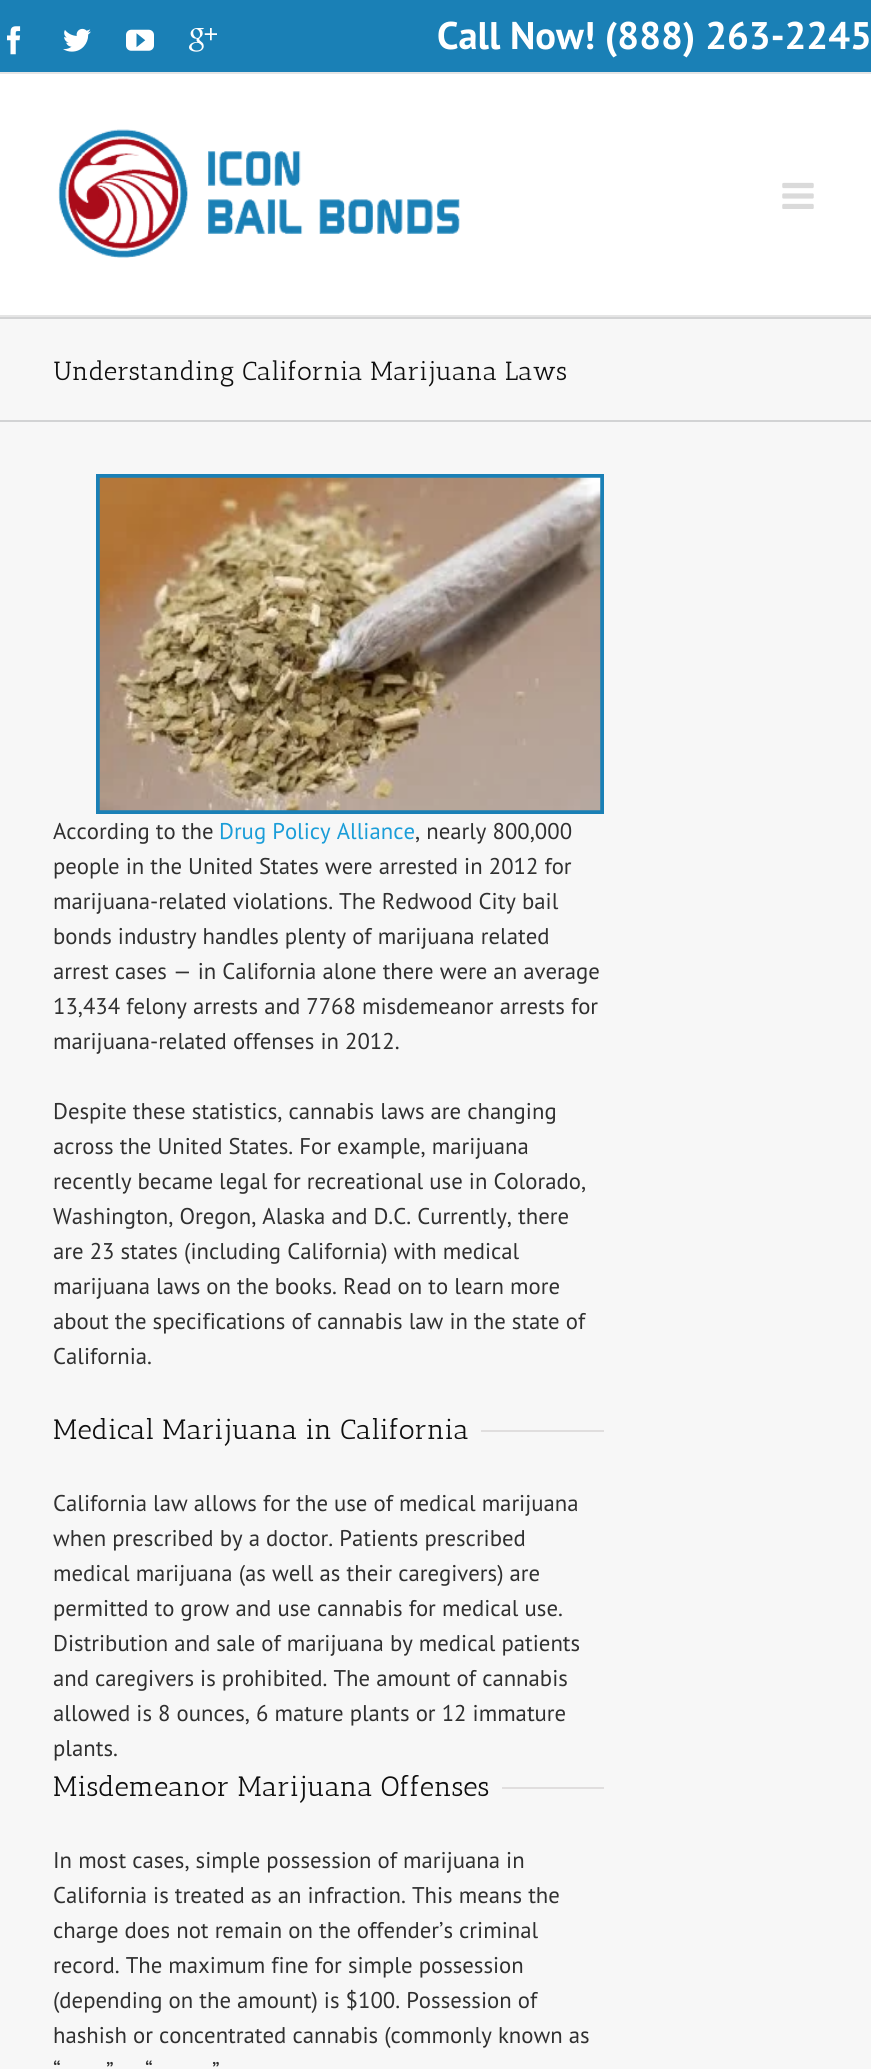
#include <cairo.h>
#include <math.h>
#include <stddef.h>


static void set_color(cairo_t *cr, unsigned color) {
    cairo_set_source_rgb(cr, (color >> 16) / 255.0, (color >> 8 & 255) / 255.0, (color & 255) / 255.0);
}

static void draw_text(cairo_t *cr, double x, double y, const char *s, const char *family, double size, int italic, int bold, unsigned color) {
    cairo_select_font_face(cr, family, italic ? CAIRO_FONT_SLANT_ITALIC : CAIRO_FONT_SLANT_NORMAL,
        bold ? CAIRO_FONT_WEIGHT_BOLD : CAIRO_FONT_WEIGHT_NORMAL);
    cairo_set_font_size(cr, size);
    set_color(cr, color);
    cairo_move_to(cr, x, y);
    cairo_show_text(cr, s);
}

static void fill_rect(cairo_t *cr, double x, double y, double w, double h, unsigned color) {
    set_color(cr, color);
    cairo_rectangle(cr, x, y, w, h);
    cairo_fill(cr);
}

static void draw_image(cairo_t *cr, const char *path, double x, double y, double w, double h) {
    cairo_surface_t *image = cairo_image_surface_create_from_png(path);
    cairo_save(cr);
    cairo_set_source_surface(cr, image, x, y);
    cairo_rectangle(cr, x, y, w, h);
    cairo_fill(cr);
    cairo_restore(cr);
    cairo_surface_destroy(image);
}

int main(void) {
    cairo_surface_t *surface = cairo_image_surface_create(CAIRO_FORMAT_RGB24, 871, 2069);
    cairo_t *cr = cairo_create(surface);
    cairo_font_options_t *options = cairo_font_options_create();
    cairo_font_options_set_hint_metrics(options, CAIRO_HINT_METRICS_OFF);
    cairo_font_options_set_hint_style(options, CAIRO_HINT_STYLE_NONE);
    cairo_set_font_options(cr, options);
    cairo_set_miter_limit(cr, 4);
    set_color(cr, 0xF7F7F7);
    cairo_paint(cr);
    fill_rect(cr, 0, 0, 871, 72, 0x1A80B6);
    fill_rect(cr, 0, 72, 871, 2, 0xE5E5E5);
    draw_image(cr, "assets/img1.png", 7, 26, 14, 29);
    draw_image(cr, "assets/img2.png", 63, 28, 28, 24);
    draw_image(cr, "assets/img3.png", 126, 29, 28, 22);
    draw_image(cr, "assets/img4.png", 189, 28, 28, 24);
    draw_text(cr, 437, 49, "Call Now! (888) 263-2245", "PT Sans", 38.5, 0, 1, 0xFFFFFF);
    fill_rect(cr, 0, 74, 871, 241, 0xFFFFFF);
    fill_rect(cr, 0, 315, 871, 2, 0xE5E5E5);
    draw_image(cr, "assets/img5.png", 58, 129, 402, 129);
    draw_image(cr, "assets/img6.png", 782, 182, 32, 27);
    fill_rect(cr, 0, 317, 871, 2, 0xD2D3D4);
    fill_rect(cr, 0, 420, 871, 2, 0xD2D3D4);
    draw_text(cr, 53, 380, "Understanding California Marijuana Laws", "Antic Slab", 26.25, 0, 0, 0x0F0F0F);
    cairo_rectangle(cr, 98, 476, 504, 336);
    set_color(cr, 0x1A80B6);
    cairo_set_line_width(cr, 4);
    cairo_stroke(cr);
    draw_image(cr, "assets/img7.png", 99, 477, 502, 334);
    draw_text(cr, 53, 839, "According to the", "PT Sans", 22.75, 0, 0, 0x303030);
    draw_text(cr, 219, 839, "Drug Policy Alliance", "PT Sans", 22.75, 0, 0, 0x1A9DD8);
    draw_text(cr, 415, 839, ", nearly 800,000", "PT Sans", 22.75, 0, 0, 0x303030);
    draw_text(cr, 53, 874, "people in the United States were arrested in 2012 for", "PT Sans", 22.75, 0, 0, 0x303030);
    draw_text(cr, 53, 909, "marijuana-related violations. The Redwood City bail", "PT Sans", 22.75, 0, 0, 0x303030);
    draw_text(cr, 53, 944, "bonds industry handles plenty of marijuana related", "PT Sans", 22.75, 0, 0, 0x303030);
    draw_text(cr, 53, 979, "arrest cases — in California alone there were an average", "PT Sans", 22.75, 0, 0, 0x303030);
    draw_text(cr, 53, 1014, "13,434 felony arrests and 7768 misdemeanor arrests for", "PT Sans", 22.75, 0, 0, 0x303030);
    draw_text(cr, 53, 1049, "marijuana-related offenses in 2012.", "PT Sans", 22.75, 0, 0, 0x303030);
    draw_text(cr, 53, 1119, "Despite these statistics, cannabis laws are changing", "PT Sans", 22.75, 0, 0, 0x303030);
    draw_text(cr, 53, 1154, "across the United States. For example, marijuana", "PT Sans", 22.75, 0, 0, 0x303030);
    draw_text(cr, 53, 1189, "recently became legal for recreational use in Colorado,", "PT Sans", 22.75, 0, 0, 0x303030);
    draw_text(cr, 53, 1224, "Washington, Oregon, Alaska and D.C. Currently, there", "PT Sans", 22.75, 0, 0, 0x303030);
    draw_text(cr, 53, 1259, "are 23 states (including California) with medical", "PT Sans", 22.75, 0, 0, 0x303030);
    draw_text(cr, 53, 1294, "marijuana laws on the books. Read on to learn more", "PT Sans", 22.75, 0, 0, 0x303030);
    draw_text(cr, 53, 1329, "about the specifications of cannabis law in the state of", "PT Sans", 22.75, 0, 0, 0x303030);
    draw_text(cr, 53, 1364, "California.", "PT Sans", 22.75, 0, 0, 0x303030);
    draw_text(cr, 53, 1439, "Medical Marijuana in California", "Antic Slab", 28, 0, 0, 0x0F0F0F);
    fill_rect(cr, 481, 1430, 123, 2, 0xE0DEDE);
    draw_text(cr, 53, 1511, "California law allows for the use of medical marijuana", "PT Sans", 22.75, 0, 0, 0x303030);
    draw_text(cr, 53, 1546, "when prescribed by a doctor. Patients prescribed", "PT Sans", 22.75, 0, 0, 0x303030);
    draw_text(cr, 53, 1581, "medical marijuana (as well as their caregivers) are", "PT Sans", 22.75, 0, 0, 0x303030);
    draw_text(cr, 53, 1616, "permitted to grow and use cannabis for medical use.", "PT Sans", 22.75, 0, 0, 0x303030);
    draw_text(cr, 53, 1651, "Distribution and sale of marijuana by medical patients", "PT Sans", 22.75, 0, 0, 0x303030);
    draw_text(cr, 53, 1686, "and caregivers is prohibited. The amount of cannabis", "PT Sans", 22.75, 0, 0, 0x303030);
    draw_text(cr, 53, 1721, "allowed is 8 ounces, 6 mature plants or 12 immature", "PT Sans", 22.75, 0, 0, 0x303030);
    draw_text(cr, 53, 1756, "plants.", "PT Sans", 22.75, 0, 0, 0x303030);
    draw_text(cr, 53, 1796, "Misdemeanor Marijuana Offenses", "Antic Slab", 28, 0, 0, 0x0F0F0F);
    fill_rect(cr, 502, 1787, 102, 2, 0xE0DEDE);
    draw_text(cr, 53, 1868, "In most cases, simple possession of marijuana in", "PT Sans", 22.75, 0, 0, 0x303030);
    draw_text(cr, 53, 1903, "California is treated as an infraction. This means the", "PT Sans", 22.75, 0, 0, 0x303030);
    draw_text(cr, 53, 1938, "charge does not remain on the offender’s criminal", "PT Sans", 22.75, 0, 0, 0x303030);
    draw_text(cr, 53, 1973, "record. The maximum fine for simple possession", "PT Sans", 22.75, 0, 0, 0x303030);
    draw_text(cr, 53, 2008, "(depending on the amount) is $100. Possession of", "PT Sans", 22.75, 0, 0, 0x303030);
    draw_text(cr, 53, 2043, "hashish or concentrated cannabis (commonly known as", "PT Sans", 22.75, 0, 0, 0x303030);
    draw_text(cr, 53, 2078, "“", "PT Sans", 22.75, 0, 0, 0x303030);
    draw_text(cr, 106, 2078, "”", "PT Sans", 22.75, 0, 0, 0x303030);
    draw_text(cr, 145, 2078, "“", "PT Sans", 22.75, 0, 0, 0x303030);
    draw_text(cr, 212, 2078, "”", "PT Sans", 22.75, 0, 0, 0x303030);
    cairo_surface_write_to_png(surface, "output.png");
    cairo_font_options_destroy(options);
    cairo_destroy(cr);
    cairo_surface_destroy(surface);
    return 0;
}
